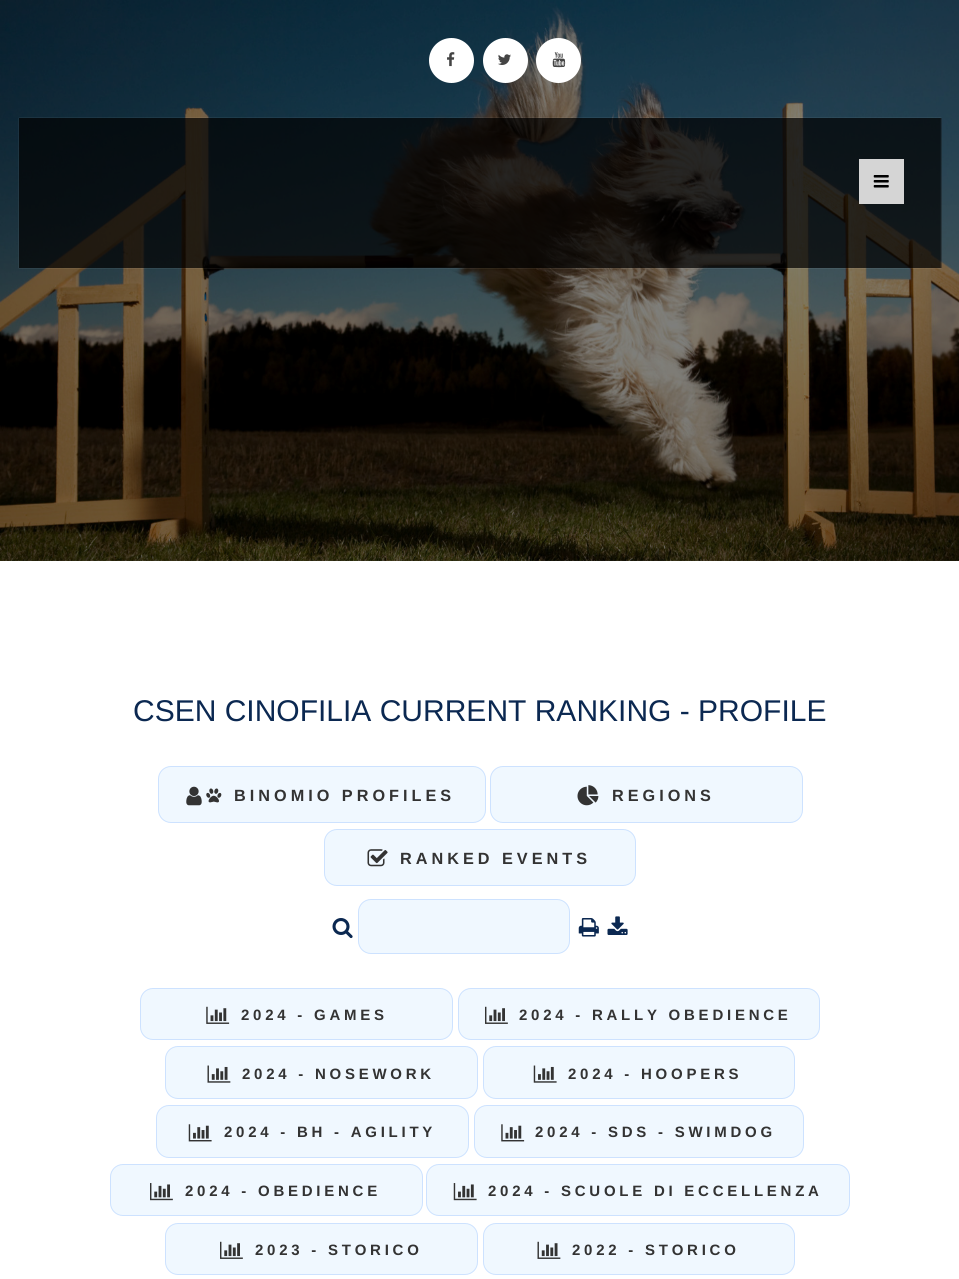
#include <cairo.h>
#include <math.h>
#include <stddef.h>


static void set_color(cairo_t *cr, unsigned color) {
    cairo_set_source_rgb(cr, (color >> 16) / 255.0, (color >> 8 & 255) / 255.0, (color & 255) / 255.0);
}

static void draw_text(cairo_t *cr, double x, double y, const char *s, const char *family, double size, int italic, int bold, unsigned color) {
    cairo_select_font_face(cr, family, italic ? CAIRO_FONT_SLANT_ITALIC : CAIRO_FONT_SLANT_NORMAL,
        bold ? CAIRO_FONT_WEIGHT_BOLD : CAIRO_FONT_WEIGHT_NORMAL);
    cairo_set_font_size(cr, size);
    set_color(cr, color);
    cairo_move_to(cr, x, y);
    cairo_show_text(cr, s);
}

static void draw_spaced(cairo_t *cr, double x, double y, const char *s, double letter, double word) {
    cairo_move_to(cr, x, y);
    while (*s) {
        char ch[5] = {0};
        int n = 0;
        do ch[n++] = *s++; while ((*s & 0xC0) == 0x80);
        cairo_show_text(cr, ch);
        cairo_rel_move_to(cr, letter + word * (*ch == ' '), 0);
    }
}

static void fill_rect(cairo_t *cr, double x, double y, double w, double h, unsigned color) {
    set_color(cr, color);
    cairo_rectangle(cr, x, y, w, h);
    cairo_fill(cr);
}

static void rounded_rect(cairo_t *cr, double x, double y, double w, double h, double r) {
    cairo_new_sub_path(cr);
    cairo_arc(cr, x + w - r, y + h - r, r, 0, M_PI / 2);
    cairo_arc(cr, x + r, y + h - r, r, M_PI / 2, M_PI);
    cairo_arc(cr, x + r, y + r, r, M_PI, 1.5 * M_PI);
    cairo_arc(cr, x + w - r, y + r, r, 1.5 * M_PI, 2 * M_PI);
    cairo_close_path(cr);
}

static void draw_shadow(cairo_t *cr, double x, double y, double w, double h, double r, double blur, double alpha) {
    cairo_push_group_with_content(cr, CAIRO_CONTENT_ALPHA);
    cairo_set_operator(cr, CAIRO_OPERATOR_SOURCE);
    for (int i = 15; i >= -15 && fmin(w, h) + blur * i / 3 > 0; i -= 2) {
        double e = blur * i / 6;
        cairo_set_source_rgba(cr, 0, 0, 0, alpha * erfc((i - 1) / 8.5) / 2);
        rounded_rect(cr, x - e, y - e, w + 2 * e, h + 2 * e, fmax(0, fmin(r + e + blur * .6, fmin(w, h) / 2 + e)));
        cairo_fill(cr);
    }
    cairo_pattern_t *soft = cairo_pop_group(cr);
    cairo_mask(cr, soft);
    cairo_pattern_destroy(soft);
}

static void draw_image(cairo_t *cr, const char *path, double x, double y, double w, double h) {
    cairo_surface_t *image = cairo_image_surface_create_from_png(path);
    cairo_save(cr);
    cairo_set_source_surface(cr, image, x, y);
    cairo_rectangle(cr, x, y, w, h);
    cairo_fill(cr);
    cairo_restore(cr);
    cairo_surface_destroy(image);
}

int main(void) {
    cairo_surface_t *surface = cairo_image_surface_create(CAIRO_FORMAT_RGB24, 959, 1279);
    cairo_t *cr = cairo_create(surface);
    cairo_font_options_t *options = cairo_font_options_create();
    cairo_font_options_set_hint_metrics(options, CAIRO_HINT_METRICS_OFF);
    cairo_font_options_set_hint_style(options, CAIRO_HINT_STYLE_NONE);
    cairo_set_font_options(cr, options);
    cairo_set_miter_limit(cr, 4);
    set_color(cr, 0xFFFFFF);
    cairo_paint(cr);
    draw_image(cr, "assets/img1.png", 0, 0, 959, 561);
    set_color(cr, 0xFFFFFF);
    cairo_arc(cr, 451.5, 60.5, 22.5, 0, 2 * M_PI);
    cairo_fill(cr);
    draw_image(cr, "assets/img2.png", 447, 52, 8, 15);
    cairo_arc(cr, 505.5, 60.5, 22.5, 0, 2 * M_PI);
    cairo_fill(cr);
    draw_image(cr, "assets/img3.png", 498, 54, 13, 11);
    cairo_arc(cr, 558.5, 60.5, 22.5, 0, 2 * M_PI);
    cairo_fill(cr);
    draw_image(cr, "assets/img4.png", 552, 52, 14, 16);
    cairo_save(cr);
    cairo_set_fill_rule(cr, CAIRO_FILL_RULE_EVEN_ODD);
    cairo_new_path(cr);
    cairo_move_to(cr, 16, 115);
    cairo_line_to(cr, 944, 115);
    cairo_line_to(cr, 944, 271);
    cairo_line_to(cr, 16, 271);
    cairo_close_path(cr);
    cairo_move_to(cr, 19, 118);
    cairo_line_to(cr, 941, 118);
    cairo_line_to(cr, 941, 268);
    cairo_line_to(cr, 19, 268);
    cairo_close_path(cr);
    cairo_clip(cr);
    set_color(cr, 0xFFFFFF);
    draw_shadow(cr, 19, 118, 922, 150, 0, 0.5, 0.2);
    cairo_restore(cr);
    draw_image(cr, "assets/img5.png", 19, 118, 923, 150);
    fill_rect(cr, 859, 159, 45, 45, 0xD5D5D5);
    draw_image(cr, "assets/img6.png", 873, 175, 16, 13);
    draw_text(cr, 133, 721, "CSEN CINOFILIA CURRENT RANKING - PROFILE", "Liberation Sans", 30, 0, 0, 0x0B2851);
    set_color(cr, 0xF0F8FF);
    rounded_rect(cr, 158.5, 766.5, 327, 56, 12.5);
    cairo_fill_preserve(cr);
    set_color(cr, 0xCDE2FF);
    cairo_set_line_width(cr, 1);
    cairo_stroke(cr);
    draw_image(cr, "assets/img7.png", 186, 786, 16, 20);
    draw_image(cr, "assets/img8.png", 206, 788, 16, 15);
    cairo_select_font_face(cr, "Liberation Sans", CAIRO_FONT_SLANT_NORMAL, CAIRO_FONT_WEIGHT_BOLD);
    cairo_set_font_size(cr, 16.25);
    set_color(cr, 0x333333);
    draw_spaced(cr, 234, 801, "BINOMIO PROFILES", 4, 0);
    set_color(cr, 0xF0F8FF);
    rounded_rect(cr, 490.5, 766.5, 312, 56, 12.5);
    cairo_fill_preserve(cr);
    set_color(cr, 0xCDE2FF);
    cairo_stroke(cr);
    draw_image(cr, "assets/img9.png", 577, 785, 22, 21);
    set_color(cr, 0x333333);
    draw_spaced(cr, 612, 801, "REGIONS", 4, 0);
    set_color(cr, 0xF0F8FF);
    rounded_rect(cr, 324.5, 829.5, 311, 56, 12.5);
    cairo_fill_preserve(cr);
    set_color(cr, 0xCDE2FF);
    cairo_stroke(cr);
    draw_image(cr, "assets/img10.png", 367, 849, 21, 18);
    set_color(cr, 0x333333);
    draw_spaced(cr, 400, 864, "RANKED EVENTS", 4, 0);
    draw_image(cr, "assets/img11.png", 332, 918, 21, 21);
    set_color(cr, 0xF0F8FF);
    rounded_rect(cr, 358.5, 899.5, 211, 54, 12.5);
    cairo_fill_preserve(cr);
    set_color(cr, 0xCDE2FF);
    cairo_stroke(cr);
    draw_image(cr, "assets/img12.png", 578, 918, 21, 19);
    draw_image(cr, "assets/img13.png", 607, 916, 21, 19);
    set_color(cr, 0xF0F8FF);
    rounded_rect(cr, 140.5, 988.5, 312, 51, 12.5);
    cairo_fill_preserve(cr);
    set_color(cr, 0xCDE2FF);
    cairo_stroke(cr);
    draw_image(cr, "assets/img14.png", 206, 1006, 24, 18);
    cairo_set_font_size(cr, 15);
    set_color(cr, 0x333333);
    draw_spaced(cr, 241, 1020, "2024 - GAMES", 3.75, 0);
    set_color(cr, 0xF0F8FF);
    rounded_rect(cr, 458.5, 988.5, 361, 51, 12.5);
    cairo_fill_preserve(cr);
    set_color(cr, 0xCDE2FF);
    cairo_stroke(cr);
    draw_image(cr, "assets/img15.png", 485, 1006, 23, 18);
    set_color(cr, 0x333333);
    draw_spaced(cr, 519, 1020, "2024 - RALLY OBEDIENCE", 3.75, 0);
    set_color(cr, 0xF0F8FF);
    rounded_rect(cr, 165.5, 1046.5, 312, 52, 12.5);
    cairo_fill_preserve(cr);
    set_color(cr, 0xCDE2FF);
    cairo_stroke(cr);
    draw_image(cr, "assets/img16.png", 207, 1065, 24, 18);
    set_color(cr, 0x333333);
    draw_spaced(cr, 242, 1079, "2024 - NOSEWORK", 3.75, 0);
    set_color(cr, 0xF0F8FF);
    rounded_rect(cr, 483.5, 1046.5, 311, 52, 12.5);
    cairo_fill_preserve(cr);
    set_color(cr, 0xCDE2FF);
    cairo_stroke(cr);
    draw_image(cr, "assets/img17.png", 533, 1065, 24, 18);
    set_color(cr, 0x333333);
    draw_spaced(cr, 568, 1079, "2024 - HOOPERS", 3.75, 0);
    set_color(cr, 0xF0F8FF);
    rounded_rect(cr, 156.5, 1105.5, 312, 52, 12.5);
    cairo_fill_preserve(cr);
    set_color(cr, 0xCDE2FF);
    cairo_stroke(cr);
    draw_image(cr, "assets/img18.png", 188, 1124, 24, 18);
    set_color(cr, 0x333333);
    draw_spaced(cr, 224, 1137, "2024 - BH - AGILITY", 3.75, 0);
    set_color(cr, 0xF0F8FF);
    rounded_rect(cr, 474.5, 1105.5, 329, 52, 12.5);
    cairo_fill_preserve(cr);
    set_color(cr, 0xCDE2FF);
    cairo_stroke(cr);
    draw_image(cr, "assets/img19.png", 501, 1124, 24, 18);
    set_color(cr, 0x333333);
    draw_spaced(cr, 535, 1137, "2024 - SDS - SWIMDOG", 3.75, 0);
    set_color(cr, 0xF0F8FF);
    rounded_rect(cr, 110.5, 1164.5, 312, 51, 12.5);
    cairo_fill_preserve(cr);
    set_color(cr, 0xCDE2FF);
    cairo_stroke(cr);
    draw_image(cr, "assets/img20.png", 150, 1183, 23, 18);
    set_color(cr, 0x333333);
    draw_spaced(cr, 185, 1196, "2024 - OBEDIENCE", 3.75, 0);
    set_color(cr, 0xF0F8FF);
    rounded_rect(cr, 426.5, 1164.5, 423, 51, 12.5);
    cairo_fill_preserve(cr);
    set_color(cr, 0xCDE2FF);
    cairo_stroke(cr);
    draw_image(cr, "assets/img21.png", 453, 1183, 24, 18);
    set_color(cr, 0x333333);
    draw_spaced(cr, 488, 1196, "2024 - SCUOLE DI ECCELLENZA", 3.75, 0);
    set_color(cr, 0xF0F8FF);
    rounded_rect(cr, 165.5, 1223.5, 312, 51, 12.5);
    cairo_fill_preserve(cr);
    set_color(cr, 0xCDE2FF);
    cairo_stroke(cr);
    draw_image(cr, "assets/img15.png", 220, 1241, 23, 18);
    set_color(cr, 0x333333);
    draw_spaced(cr, 255, 1255, "2023 - STORICO", 3.75, 0);
    set_color(cr, 0xF0F8FF);
    rounded_rect(cr, 483.5, 1223.5, 311, 51, 12.5);
    cairo_fill_preserve(cr);
    set_color(cr, 0xCDE2FF);
    cairo_stroke(cr);
    draw_image(cr, "assets/img22.png", 537, 1241, 24, 18);
    set_color(cr, 0x333333);
    draw_spaced(cr, 572, 1255, "2022 - STORICO", 3.75, 0);
    cairo_surface_write_to_png(surface, "output.png");
    cairo_font_options_destroy(options);
    cairo_destroy(cr);
    cairo_surface_destroy(surface);
    return 0;
}
